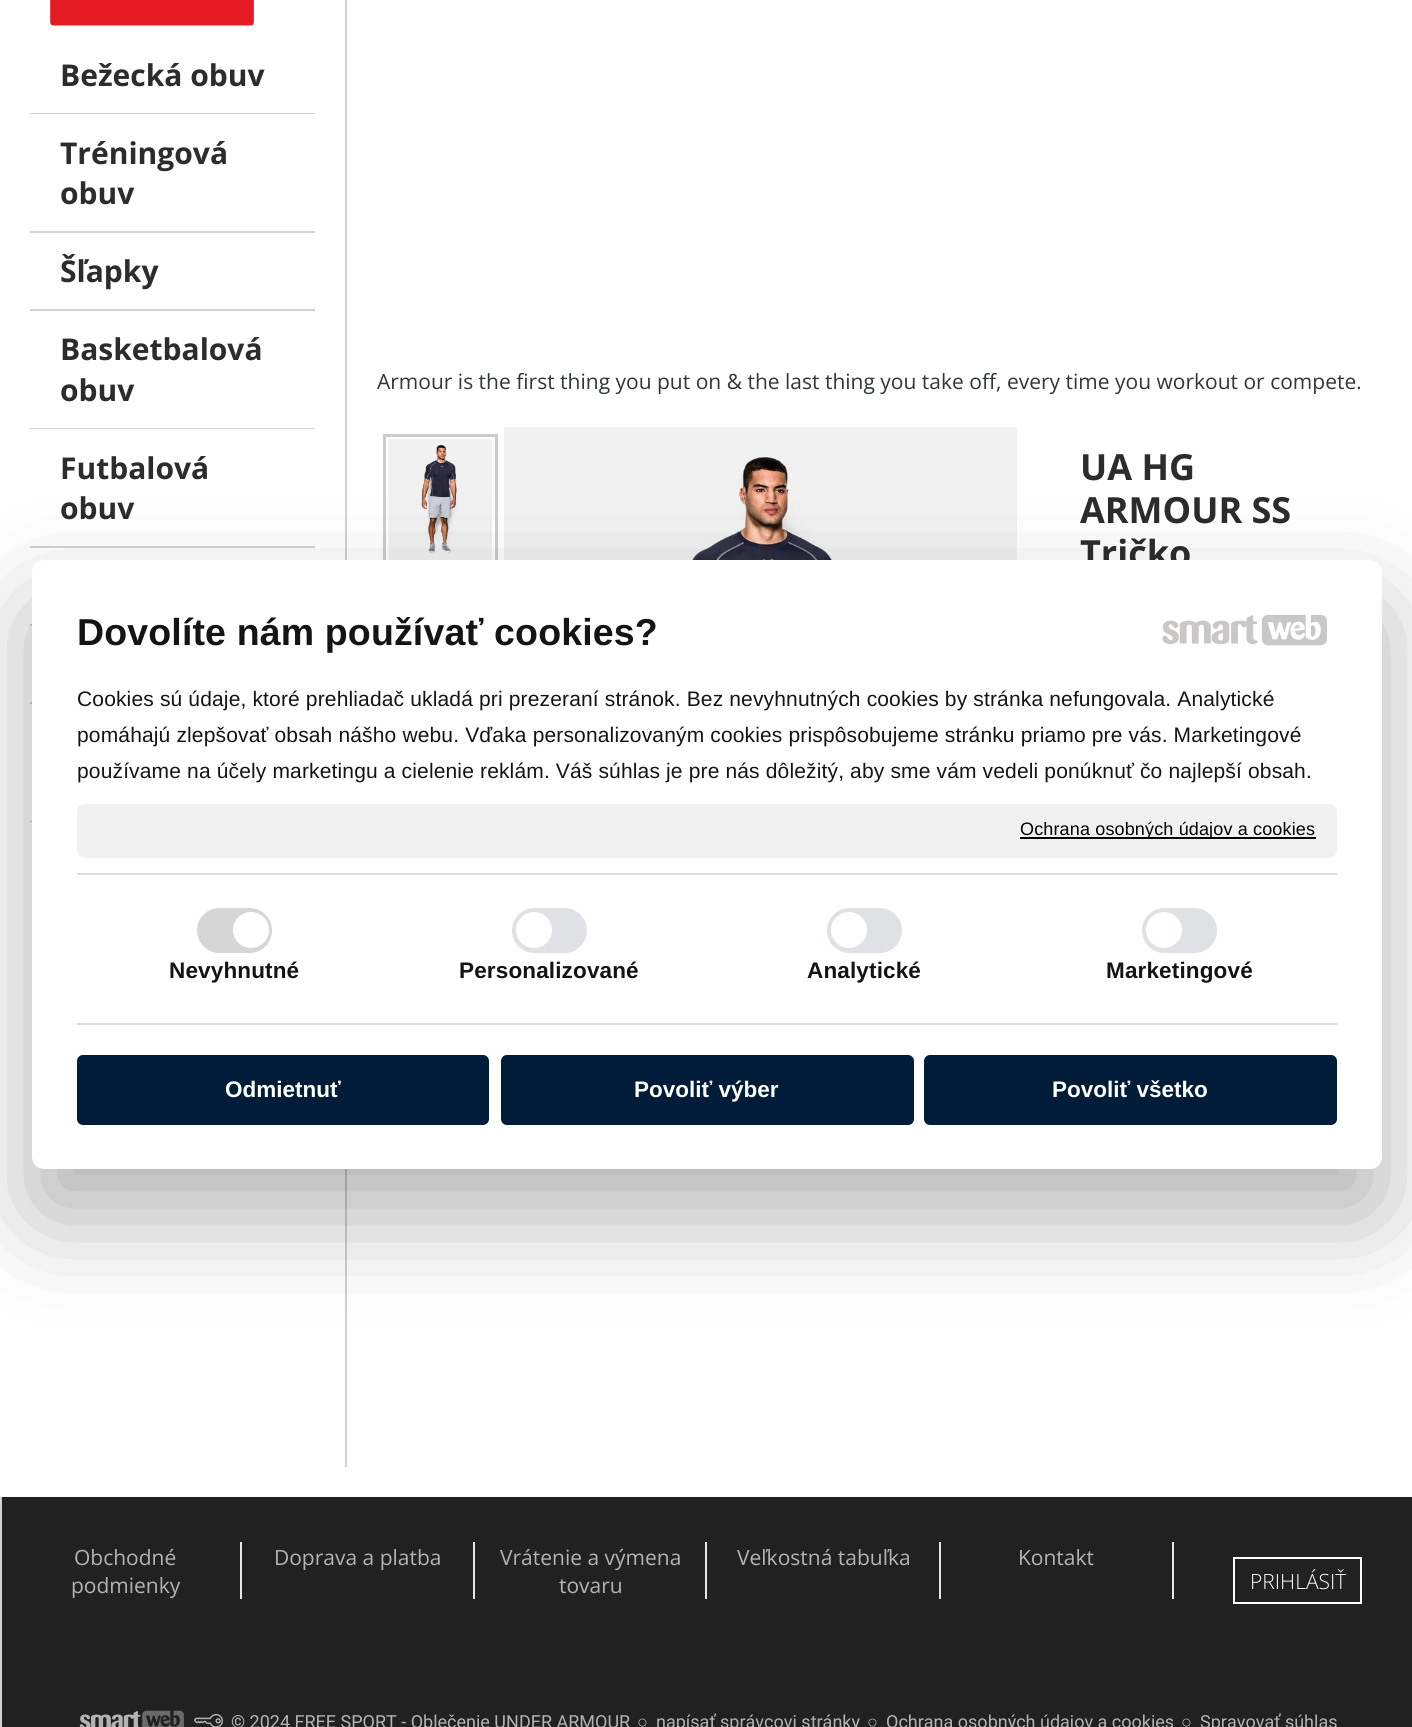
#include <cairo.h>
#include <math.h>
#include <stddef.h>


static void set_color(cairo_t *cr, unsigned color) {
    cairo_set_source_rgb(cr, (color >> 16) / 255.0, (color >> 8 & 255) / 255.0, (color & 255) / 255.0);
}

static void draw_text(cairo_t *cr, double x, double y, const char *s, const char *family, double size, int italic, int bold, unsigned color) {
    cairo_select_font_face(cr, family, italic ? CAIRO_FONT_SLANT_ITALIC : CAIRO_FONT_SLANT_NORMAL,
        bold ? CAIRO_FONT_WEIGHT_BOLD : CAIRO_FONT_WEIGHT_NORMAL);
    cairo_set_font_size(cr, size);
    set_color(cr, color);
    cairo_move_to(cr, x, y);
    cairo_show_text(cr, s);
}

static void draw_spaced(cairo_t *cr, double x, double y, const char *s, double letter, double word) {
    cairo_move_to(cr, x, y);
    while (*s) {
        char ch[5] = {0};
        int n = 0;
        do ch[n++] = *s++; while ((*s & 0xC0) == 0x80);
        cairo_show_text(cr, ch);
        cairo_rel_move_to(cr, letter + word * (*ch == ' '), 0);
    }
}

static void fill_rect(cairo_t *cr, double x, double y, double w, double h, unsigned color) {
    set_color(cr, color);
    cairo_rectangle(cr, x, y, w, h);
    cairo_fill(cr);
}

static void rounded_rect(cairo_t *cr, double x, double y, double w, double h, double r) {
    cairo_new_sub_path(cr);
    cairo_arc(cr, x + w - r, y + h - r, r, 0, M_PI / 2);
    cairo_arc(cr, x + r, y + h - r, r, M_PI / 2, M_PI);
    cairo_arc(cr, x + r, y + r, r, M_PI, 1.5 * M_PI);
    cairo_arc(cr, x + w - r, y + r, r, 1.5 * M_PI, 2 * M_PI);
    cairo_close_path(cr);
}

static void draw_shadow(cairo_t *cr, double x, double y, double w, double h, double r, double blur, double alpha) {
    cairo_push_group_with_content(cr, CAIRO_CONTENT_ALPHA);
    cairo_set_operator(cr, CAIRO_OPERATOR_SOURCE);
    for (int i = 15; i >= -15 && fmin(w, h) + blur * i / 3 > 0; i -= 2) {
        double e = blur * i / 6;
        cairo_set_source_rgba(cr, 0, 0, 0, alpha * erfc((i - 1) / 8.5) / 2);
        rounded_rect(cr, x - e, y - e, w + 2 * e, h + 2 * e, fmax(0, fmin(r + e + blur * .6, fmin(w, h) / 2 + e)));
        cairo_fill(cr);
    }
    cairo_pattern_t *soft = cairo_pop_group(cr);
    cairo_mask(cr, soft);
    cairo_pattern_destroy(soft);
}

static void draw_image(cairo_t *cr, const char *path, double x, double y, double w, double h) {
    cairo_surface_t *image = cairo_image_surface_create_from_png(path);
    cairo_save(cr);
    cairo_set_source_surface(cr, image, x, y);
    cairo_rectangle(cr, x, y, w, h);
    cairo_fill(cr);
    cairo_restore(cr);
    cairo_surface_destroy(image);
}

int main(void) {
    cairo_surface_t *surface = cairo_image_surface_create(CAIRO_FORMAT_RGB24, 1412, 1727);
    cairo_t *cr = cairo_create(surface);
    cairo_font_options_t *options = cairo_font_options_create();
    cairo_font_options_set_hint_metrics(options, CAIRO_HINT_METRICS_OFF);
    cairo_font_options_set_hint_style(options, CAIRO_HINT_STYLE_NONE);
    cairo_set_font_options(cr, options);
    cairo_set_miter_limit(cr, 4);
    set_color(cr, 0xFFFFFF);
    cairo_paint(cr);
    draw_image(cr, "assets/img1.png", 50, 0, 204, 26);
    fill_rect(cr, 30, 113, 285, 1, 0xD2D2D2);
    draw_text(cr, 60, 86, "Bežecká obuv", "Open Sans", 30, 0, 1, 0x2D2C2C);
    fill_rect(cr, 30, 231, 285, 2, 0xD2D2D2);
    draw_text(cr, 60, 164, "Tréningová", "Open Sans", 30, 0, 1, 0x2D2C2C);
    draw_text(cr, 60, 204, "obuv", "Open Sans", 30, 0, 1, 0x2D2C2C);
    fill_rect(cr, 30, 309, 285, 2, 0xD2D2D2);
    draw_text(cr, 60, 282, "Šľapky", "Open Sans", 30, 0, 1, 0x2D2C2C);
    fill_rect(cr, 30, 428, 285, 1, 0xD2D2D2);
    draw_text(cr, 60, 360, "Basketbalová", "Open Sans", 30, 0, 1, 0x2D2C2C);
    draw_text(cr, 60, 401, "obuv", "Open Sans", 30, 0, 1, 0x2D2C2C);
    fill_rect(cr, 30, 546, 285, 2, 0xD2D2D2);
    draw_text(cr, 60, 479, "Futbalová", "Open Sans", 30, 0, 1, 0x2D2C2C);
    draw_text(cr, 60, 519, "obuv", "Open Sans", 30, 0, 1, 0x2D2C2C);
    fill_rect(cr, 30, 624, 2, 2, 0xD2D2D2);
    fill_rect(cr, 30, 702, 2, 2, 0xD2D2D2);
    fill_rect(cr, 30, 821, 2, 1, 0xD2D2D2);
    fill_rect(cr, 345, 0, 2, 1467, 0xD2D2D2);
    draw_text(cr, 377, 389, "Armour is the first thing you put on & the last thing you take off, every time you workout or compete.", "Open Sans", 21, 0, 0, 0x30373C);
    cairo_rectangle(cr, 384.5, 435.5, 112, 130);
    set_color(cr, 0xCCCCCC);
    cairo_set_line_width(cr, 3);
    cairo_stroke(cr);
    draw_image(cr, "assets/img2.png", 388, 439, 104, 121);
    draw_image(cr, "assets/img3.png", 504, 427, 513, 133);
    draw_text(cr, 1080, 480, "UA HG", "Open Sans", 36, 0, 1, 0x2D2C2C);
    draw_text(cr, 1080, 523, "ARMOUR SS", "Open Sans", 36, 0, 1, 0x2D2C2C);
    draw_text(cr, 1080, 566, "Tričko", "Open Sans", 36, 0, 1, 0x2D2C2C);
    set_color(cr, 0x000000);
    draw_shadow(cr, 32, 608, 1350, 609, 12, 51, 0.3);
    set_color(cr, 0xFFFFFF);
    rounded_rect(cr, 32, 560, 1350, 609, 12);
    cairo_fill(cr);
    cairo_select_font_face(cr, "Liberation Sans", CAIRO_FONT_SLANT_NORMAL, CAIRO_FONT_WEIGHT_BOLD);
    cairo_set_font_size(cr, 37.5);
    set_color(cr, 0x141414);
    draw_spaced(cr, 77, 645, "Dovolíte nám používať cookies?", 0.15, 0);
    draw_image(cr, "assets/img4.png", 1162, 615, 96, 30);
    draw_image(cr, "assets/img5.png", 1261, 614, 66, 32);
    cairo_select_font_face(cr, "Liberation Sans", CAIRO_FONT_SLANT_NORMAL, CAIRO_FONT_WEIGHT_NORMAL);
    cairo_set_font_size(cr, 21);
    draw_spaced(cr, 77, 706, "Cookies sú údaje, ktoré prehliadač ukladá pri prezeraní stránok. Bez nevyhnutných cookies by stránka nefungovala. Analytické", 0.15, 0);
    draw_spaced(cr, 77, 742, "pomáhajú zlepšovať obsah nášho webu. Vďaka personalizovaným cookies prispôsobujeme stránku priamo pre vás. Marketingové", 0.15, 0);
    draw_spaced(cr, 77, 778, "používame na účely marketingu a cielenie reklám. Váš súhlas je pre nás dôležitý, aby sme vám vedeli ponúknuť čo najlepší obsah.", 0.15, 0);
    set_color(cr, 0xF1F1F1);
    rounded_rect(cr, 77, 804, 1260, 54, 8);
    cairo_fill(cr);
    fill_rect(cr, 1020, 837, 296, 2, 0x000000);
    cairo_set_font_size(cr, 18);
    draw_spaced(cr, 1020, 835, "Ochrana osobných údajov a cookies", 0.15, 0);
    fill_rect(cr, 77, 873, 1260, 2, 0xDDDDDD);
    fill_rect(cr, 77, 1023, 1260, 2, 0xDDDDDD);
    set_color(cr, 0xD6D6D6);
    rounded_rect(cr, 197, 908, 75, 45, 22.5);
    cairo_fill(cr);
    set_color(cr, 0xFFFFFF);
    cairo_arc(cr, 251, 930, 18, 0, 2 * M_PI);
    cairo_fill(cr);
    cairo_select_font_face(cr, "Liberation Sans", CAIRO_FONT_SLANT_NORMAL, CAIRO_FONT_WEIGHT_BOLD);
    cairo_set_font_size(cr, 22.5);
    set_color(cr, 0x141414);
    draw_spaced(cr, 169, 978, "Nevyhnutné", 0.15, 0);
    set_color(cr, 0xDFE1E4);
    rounded_rect(cr, 512, 908, 75, 45, 22.5);
    cairo_fill(cr);
    set_color(cr, 0xFFFFFF);
    cairo_arc(cr, 534, 930, 18, 0, 2 * M_PI);
    cairo_fill(cr);
    set_color(cr, 0x141414);
    draw_spaced(cr, 459, 978, "Personalizované", 0.15, 0);
    set_color(cr, 0xDFE1E4);
    rounded_rect(cr, 827, 908, 75, 45, 22.5);
    cairo_fill(cr);
    set_color(cr, 0xFFFFFF);
    cairo_arc(cr, 849, 930, 18, 0, 2 * M_PI);
    cairo_fill(cr);
    set_color(cr, 0x141414);
    draw_spaced(cr, 807, 978, "Analytické", 0.15, 0);
    set_color(cr, 0xDFE1E4);
    rounded_rect(cr, 1142, 908, 75, 45, 22.5);
    cairo_fill(cr);
    set_color(cr, 0xFFFFFF);
    cairo_arc(cr, 1164, 930, 18, 0, 2 * M_PI);
    cairo_fill(cr);
    set_color(cr, 0x141414);
    draw_spaced(cr, 1106, 978, "Marketingové", 0.15, 0);
    set_color(cr, 0x011C38);
    rounded_rect(cr, 77, 1055, 412, 70, 6);
    cairo_fill(cr);
    draw_text(cr, 225, 1097, "Odmietnuť", "Liberation Sans", 22.5, 0, 1, 0xFFFFFF);
    set_color(cr, 0x011C38);
    rounded_rect(cr, 501, 1055, 413, 70, 6);
    cairo_fill(cr);
    draw_text(cr, 634, 1097, "Povoliť výber", "Liberation Sans", 22.5, 0, 1, 0xFFFFFF);
    set_color(cr, 0x011C38);
    rounded_rect(cr, 924, 1055, 413, 70, 6);
    cairo_fill(cr);
    draw_text(cr, 1052, 1097, "Povoliť všetko", "Liberation Sans", 22.5, 0, 1, 0xFFFFFF);
    fill_rect(cr, 2, 1497, 1410, 230, 0x212121);
    fill_rect(cr, 0, 1497, 2, 230, 0xD2D2D2);
    draw_text(cr, 74, 1565, "Obchodné", "Open Sans", 21, 0, 0, 0xB3B3B3);
    draw_text(cr, 71, 1593, "podmienky", "Open Sans", 21, 0, 0, 0xB3B3B3);
    fill_rect(cr, 240, 1542, 2, 57, 0xE6E6E6);
    draw_text(cr, 274, 1565, "Doprava a platba", "Open Sans", 21, 0, 0, 0xB3B3B3);
    fill_rect(cr, 473, 1542, 2, 57, 0xE6E6E6);
    draw_text(cr, 500, 1565, "Vrátenie a výmena", "Open Sans", 21, 0, 0, 0xB3B3B3);
    draw_text(cr, 559, 1593, "tovaru", "Open Sans", 21, 0, 0, 0xB3B3B3);
    fill_rect(cr, 705, 1542, 2, 57, 0xE6E6E6);
    draw_text(cr, 737, 1565, "Veľkostná tabuľka", "Open Sans", 21, 0, 0, 0xB3B3B3);
    fill_rect(cr, 939, 1542, 2, 57, 0xE6E6E6);
    draw_text(cr, 1018, 1565, "Kontakt", "Open Sans", 21, 0, 0, 0xB3B3B3);
    fill_rect(cr, 1172, 1542, 2, 57, 0xE6E6E6);
    cairo_rectangle(cr, 1234, 1558, 127, 45);
    set_color(cr, 0xFFFFFF);
    cairo_set_line_width(cr, 2);
    cairo_stroke(cr);
    draw_text(cr, 1250, 1589, "PRIHLÁSIŤ", "Open Sans Light", 21, 0, 0, 0xFFFFFF);
    draw_image(cr, "assets/img6.png", 79, 1711, 62, 16);
    draw_image(cr, "assets/img7.png", 142, 1710, 42, 17);
    draw_image(cr, "assets/img8.png", 194, 1713, 29, 14);
    draw_text(cr, 231, 1728, "© 2024 FREE SPORT - Oblečenie UNDER ARMOUR", "Roboto", 18, 0, 0, 0xB3B3B3);
    draw_text(cr, 637, 1728, "○", "Liberation Sans", 18, 0, 0, 0xB3B3B3);
    draw_text(cr, 656, 1728, "napísať správcovi stránky", "Roboto", 18, 0, 0, 0xB3B3B3);
    draw_text(cr, 867, 1728, "○", "Liberation Sans", 18, 0, 0, 0xB3B3B3);
    draw_text(cr, 886, 1728, "Ochrana osobných údajov a cookies", "Roboto", 18, 0, 0, 0xB3B3B3);
    draw_text(cr, 1181, 1728, "○", "Liberation Sans", 18, 0, 0, 0xB3B3B3);
    draw_text(cr, 1200, 1728, "Spravovať súhlas", "Roboto", 18, 0, 0, 0xB3B3B3);
    cairo_surface_write_to_png(surface, "output.png");
    cairo_font_options_destroy(options);
    cairo_destroy(cr);
    cairo_surface_destroy(surface);
    return 0;
}
